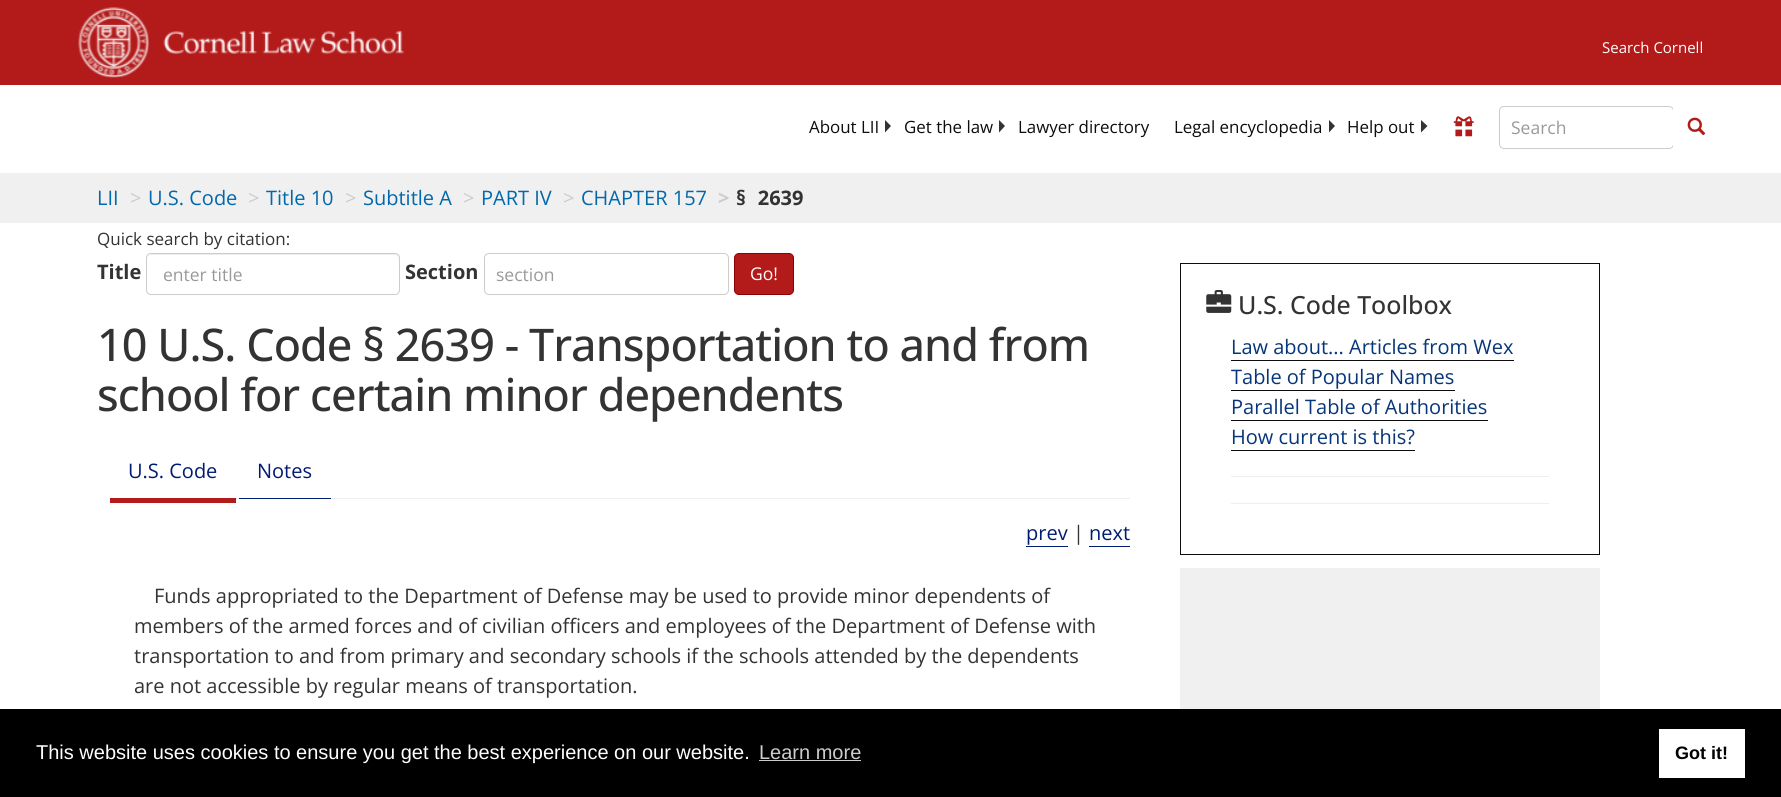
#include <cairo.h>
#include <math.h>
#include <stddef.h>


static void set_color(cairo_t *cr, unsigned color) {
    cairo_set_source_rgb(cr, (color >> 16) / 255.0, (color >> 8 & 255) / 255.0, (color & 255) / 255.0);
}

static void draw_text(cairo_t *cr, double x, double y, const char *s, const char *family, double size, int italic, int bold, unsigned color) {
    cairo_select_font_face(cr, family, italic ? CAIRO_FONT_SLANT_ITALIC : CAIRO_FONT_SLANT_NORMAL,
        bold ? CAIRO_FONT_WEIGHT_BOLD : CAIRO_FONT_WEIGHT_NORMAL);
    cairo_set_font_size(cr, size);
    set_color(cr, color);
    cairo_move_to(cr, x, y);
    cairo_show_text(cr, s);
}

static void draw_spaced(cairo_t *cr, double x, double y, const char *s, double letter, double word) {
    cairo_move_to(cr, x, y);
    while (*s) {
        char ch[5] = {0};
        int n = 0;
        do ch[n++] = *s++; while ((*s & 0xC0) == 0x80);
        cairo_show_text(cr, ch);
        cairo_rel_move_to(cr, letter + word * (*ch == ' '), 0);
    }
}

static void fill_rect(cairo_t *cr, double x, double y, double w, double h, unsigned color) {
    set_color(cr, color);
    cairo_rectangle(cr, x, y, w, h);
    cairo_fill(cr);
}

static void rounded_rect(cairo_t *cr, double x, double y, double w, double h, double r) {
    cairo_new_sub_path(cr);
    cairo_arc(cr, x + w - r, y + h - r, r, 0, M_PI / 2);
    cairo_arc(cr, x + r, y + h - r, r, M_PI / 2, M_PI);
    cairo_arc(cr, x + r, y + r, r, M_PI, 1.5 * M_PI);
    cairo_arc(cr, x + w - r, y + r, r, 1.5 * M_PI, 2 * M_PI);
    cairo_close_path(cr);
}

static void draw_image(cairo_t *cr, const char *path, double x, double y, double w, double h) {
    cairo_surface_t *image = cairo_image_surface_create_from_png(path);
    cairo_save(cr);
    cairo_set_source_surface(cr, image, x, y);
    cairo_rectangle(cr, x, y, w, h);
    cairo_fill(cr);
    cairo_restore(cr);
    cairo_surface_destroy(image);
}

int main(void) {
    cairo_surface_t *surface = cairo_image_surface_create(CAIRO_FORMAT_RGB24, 1781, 797);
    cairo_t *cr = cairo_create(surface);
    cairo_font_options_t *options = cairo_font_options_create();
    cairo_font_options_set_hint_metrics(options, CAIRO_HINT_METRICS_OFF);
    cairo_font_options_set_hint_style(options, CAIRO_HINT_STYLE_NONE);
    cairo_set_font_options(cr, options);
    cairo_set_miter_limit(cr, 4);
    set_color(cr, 0xFFFFFF);
    cairo_paint(cr);
    fill_rect(cr, 0, 0, 1781, 85, 0xB31B1B);
    draw_image(cr, "assets/img1.png", 78, 7, 71, 71);
    draw_image(cr, "assets/img2.png", 163, 30, 241, 24);
    draw_text(cr, 1602, 53, "Search Cornell", "Open Sans", 15, 0, 0, 0xFFFFFF);
    draw_text(cr, 809, 133, "About LII", "Open Sans", 16.9, 0, 0, 0x0E0D0E);
    set_color(cr, 0x333333);
    cairo_new_path(cr);
    cairo_move_to(cr, 885, 132.5);
    cairo_line_to(cr, 885, 120);
    cairo_line_to(cr, 891, 126);
    cairo_close_path(cr);
    cairo_fill(cr);
    draw_text(cr, 904, 133, "Get the law", "Open Sans", 16.9, 0, 0, 0x0E0D0E);
    set_color(cr, 0x333333);
    cairo_new_path(cr);
    cairo_move_to(cr, 999, 132.5);
    cairo_line_to(cr, 999, 120);
    cairo_line_to(cr, 1005, 126);
    cairo_close_path(cr);
    cairo_fill(cr);
    draw_text(cr, 1018, 133, "Lawyer directory", "Open Sans", 16.9, 0, 0, 0x0E0D0E);
    draw_text(cr, 1174, 133, "Legal encyclopedia", "Open Sans", 16.9, 0, 0, 0x0E0D0E);
    set_color(cr, 0x333333);
    cairo_new_path(cr);
    cairo_move_to(cr, 1329, 132.5);
    cairo_line_to(cr, 1329, 120);
    cairo_line_to(cr, 1335, 126);
    cairo_close_path(cr);
    cairo_fill(cr);
    draw_text(cr, 1347, 133, "Help out", "Open Sans", 16.9, 0, 0, 0x0E0D0E);
    set_color(cr, 0x333333);
    cairo_new_path(cr);
    cairo_move_to(cr, 1421, 132.5);
    cairo_line_to(cr, 1421, 120);
    cairo_line_to(cr, 1427.5, 126);
    cairo_close_path(cr);
    cairo_fill(cr);
    draw_image(cr, "assets/img3.png", 1453, 116, 21, 21);
    rounded_rect(cr, 1499.5, 106.5, 174, 42, 4.5);
    set_color(cr, 0xCCCCCC);
    cairo_set_line_width(cr, 1);
    cairo_stroke(cr);
    draw_text(cr, 1511, 134, "Search", "Open Sans", 17.5, 0, 0, 0x999999);
    set_color(cr, 0xFFFFFF);
    cairo_new_path(cr);
    cairo_move_to(cr, 1673, 108);
    cairo_line_to(cr, 1716, 108);
    cairo_curve_to(cr, 1719, 108, 1721, 110, 1721, 113);
    cairo_line_to(cr, 1721, 143);
    cairo_curve_to(cr, 1721, 146, 1719, 148, 1716, 148);
    cairo_line_to(cr, 1673, 148);
    cairo_close_path(cr);
    cairo_fill(cr);
    draw_image(cr, "assets/img4.png", 1687, 117, 19, 19);
    fill_rect(cr, 0, 173, 1781, 50, 0xF0F0F0);
    draw_text(cr, 97, 205, "LII", "Open Sans", 20, 0, 0, 0x0068AC);
    draw_text(cr, 130, 205, ">", "Open Sans", 20, 0, 0, 0xCCCCCC);
    draw_text(cr, 148, 205, "U.S. Code", "Open Sans", 20, 0, 0, 0x0068AC);
    draw_text(cr, 248, 205, ">", "Open Sans", 20, 0, 0, 0xCCCCCC);
    draw_text(cr, 266, 205, "Title 10", "Open Sans", 20, 0, 0, 0x0068AC);
    draw_text(cr, 345, 205, ">", "Open Sans", 20, 0, 0, 0xCCCCCC);
    draw_text(cr, 363, 205, "Subtitle A", "Open Sans", 20, 0, 0, 0x0068AC);
    draw_text(cr, 463, 205, ">", "Open Sans", 20, 0, 0, 0xCCCCCC);
    draw_text(cr, 481, 205, "PART IV", "Open Sans", 20, 0, 0, 0x0068AC);
    draw_text(cr, 563, 205, ">", "Open Sans", 20, 0, 0, 0xCCCCCC);
    draw_text(cr, 581, 205, "CHAPTER 157", "Open Sans", 20, 0, 0, 0x0068AC);
    draw_text(cr, 718, 205, ">", "Open Sans", 20, 0, 1, 0xCCCCCC);
    draw_text(cr, 736, 205, "§ 2639", "Open Sans", 20, 0, 1, 0x333333);
    draw_text(cr, 97, 245, "Quick search by citation:", "Open Sans", 17, 0, 0, 0x333333);
    draw_text(cr, 97, 279, "Title", "Open Sans", 20, 0, 1, 0x333333);
    set_color(cr, 0xECECEC);
    cairo_new_path(cr);
    cairo_move_to(cr, 151, 255);
    cairo_line_to(cr, 395, 255);
    cairo_curve_to(cr, 397, 255, 399, 257, 399, 259);
    cairo_line_to(cr, 399, 258);
    cairo_curve_to(cr, 399, 256, 397, 254, 395, 254);
    cairo_line_to(cr, 152, 254);
    cairo_curve_to(cr, 150, 254, 148, 256, 148, 258);
    cairo_line_to(cr, 148, 259);
    cairo_curve_to(cr, 148, 257, 149, 255, 151, 255);
    cairo_close_path(cr);
    cairo_fill(cr);
    rounded_rect(cr, 146.5, 253.5, 253, 41, 4.5);
    set_color(cr, 0xCCCCCC);
    cairo_stroke(cr);
    draw_text(cr, 163, 281, "enter title", "Open Sans", 17.5, 0, 0, 0x999999);
    draw_text(cr, 405, 279, "Section", "Open Sans", 20, 0, 1, 0x333333);
    rounded_rect(cr, 484.5, 253.5, 244, 41, 4.5);
    set_color(cr, 0xCCCCCC);
    cairo_stroke(cr);
    draw_text(cr, 496, 281, "section", "Open Sans", 17.5, 0, 0, 0x999999);
    set_color(cr, 0xB31B1B);
    rounded_rect(cr, 734.5, 253.5, 59, 41, 4.5);
    cairo_fill_preserve(cr);
    set_color(cr, 0x8B0000);
    cairo_stroke(cr);
    draw_text(cr, 750, 280, "Go!", "Open Sans", 17.5, 0, 0, 0xFFFFFF);
    cairo_select_font_face(cr, "Open Sans Medium", CAIRO_FONT_SLANT_NORMAL, CAIRO_FONT_WEIGHT_NORMAL);
    cairo_set_font_size(cr, 45);
    set_color(cr, 0x333333);
    draw_spaced(cr, 97, 361, "10 U.S. Code § 2639 - Transportation to and from", -0.95, 0);
    draw_spaced(cr, 97, 411, "school for certain minor dependents", -0.95, 0);
    fill_rect(cr, 110, 498, 126, 5, 0xB31B1B);
    draw_text(cr, 128, 478, "U.S. Code", "Open Sans", 20, 0, 0, 0x001C72);
    fill_rect(cr, 236, 498, 894, 1, 0xEEEEEE);
    fill_rect(cr, 239, 498, 92, 1, 0x001C72);
    draw_text(cr, 257, 478, "Notes", "Open Sans", 20, 0, 0, 0x001C72);
    draw_text(cr, 1026, 540, "prev", "Open Sans", 20, 0, 0, 0x001C72);
    fill_rect(cr, 1026, 546, 42, 1, 0x001C72);
    draw_text(cr, 1073, 540, "|", "Open Sans", 20, 0, 0, 0x333333);
    draw_text(cr, 1089, 540, "next", "Open Sans", 20, 0, 0, 0x001C72);
    fill_rect(cr, 1089, 546, 41, 1, 0x001C72);
    draw_text(cr, 154, 603, "Funds appropriated to the Department of Defense may be used to provide minor dependents of", "Open Sans", 20, 0, 0, 0x333333);
    draw_text(cr, 134, 633, "members of the armed forces and of civilian officers and employees of the Department of Defense with", "Open Sans", 20, 0, 0, 0x333333);
    draw_text(cr, 134, 663, "transportation to and from primary and secondary schools if the schools attended by the dependents", "Open Sans", 20, 0, 0, 0x333333);
    draw_text(cr, 134, 693, "are not accessible by regular means of transportation.", "Open Sans", 20, 0, 0, 0x333333);
    cairo_rectangle(cr, 1180.5, 263.5, 419, 291);
    set_color(cr, 0x0E0D0E);
    cairo_stroke(cr);
    draw_image(cr, "assets/img5.png", 1206, 290, 26, 23);
    draw_text(cr, 1238, 314, "U.S. Code Toolbox", "Open Sans Medium", 25, 0, 0, 0x333333);
    draw_text(cr, 1231, 354, "Law about... Articles from Wex", "Open Sans", 20, 0, 0, 0x06357A);
    fill_rect(cr, 1231, 360, 283, 1, 0x0E0D0E);
    draw_text(cr, 1231, 384, "Table of Popular Names", "Open Sans", 20, 0, 0, 0x06357A);
    fill_rect(cr, 1231, 390, 224, 1, 0x0E0D0E);
    draw_text(cr, 1231, 414, "Parallel Table of Authorities", "Open Sans", 20, 0, 0, 0x06357A);
    fill_rect(cr, 1231, 420, 257, 1, 0x0E0D0E);
    draw_text(cr, 1231, 444, "How current is this?", "Open Sans", 20, 0, 0, 0x06357A);
    fill_rect(cr, 1231, 450, 184, 1, 0x0E0D0E);
    fill_rect(cr, 1231, 476, 318, 1, 0xEEEEEE);
    fill_rect(cr, 1231, 503, 318, 1, 0xEEEEEE);
    fill_rect(cr, 1180, 568, 420, 141, 0xF0F0F0);
    fill_rect(cr, 0, 709, 1781, 88, 0x000000);
    draw_text(cr, 36, 759, "This website uses cookies to ensure you get the best experience on our website.", "Liberation Sans", 20, 0, 0, 0xFFFFFF);
    draw_text(cr, 759, 759, "Learn more", "Liberation Sans", 20, 0, 0, 0xCCCCCC);
    fill_rect(cr, 759, 760, 102, 1, 0xCCCCCC);
    fill_rect(cr, 1659, 729, 86, 49, 0xFFFFFF);
    draw_text(cr, 1675, 759, "Got it!", "Liberation Sans", 18, 0, 1, 0x000000);
    cairo_surface_write_to_png(surface, "output.png");
    cairo_font_options_destroy(options);
    cairo_destroy(cr);
    cairo_surface_destroy(surface);
    return 0;
}
